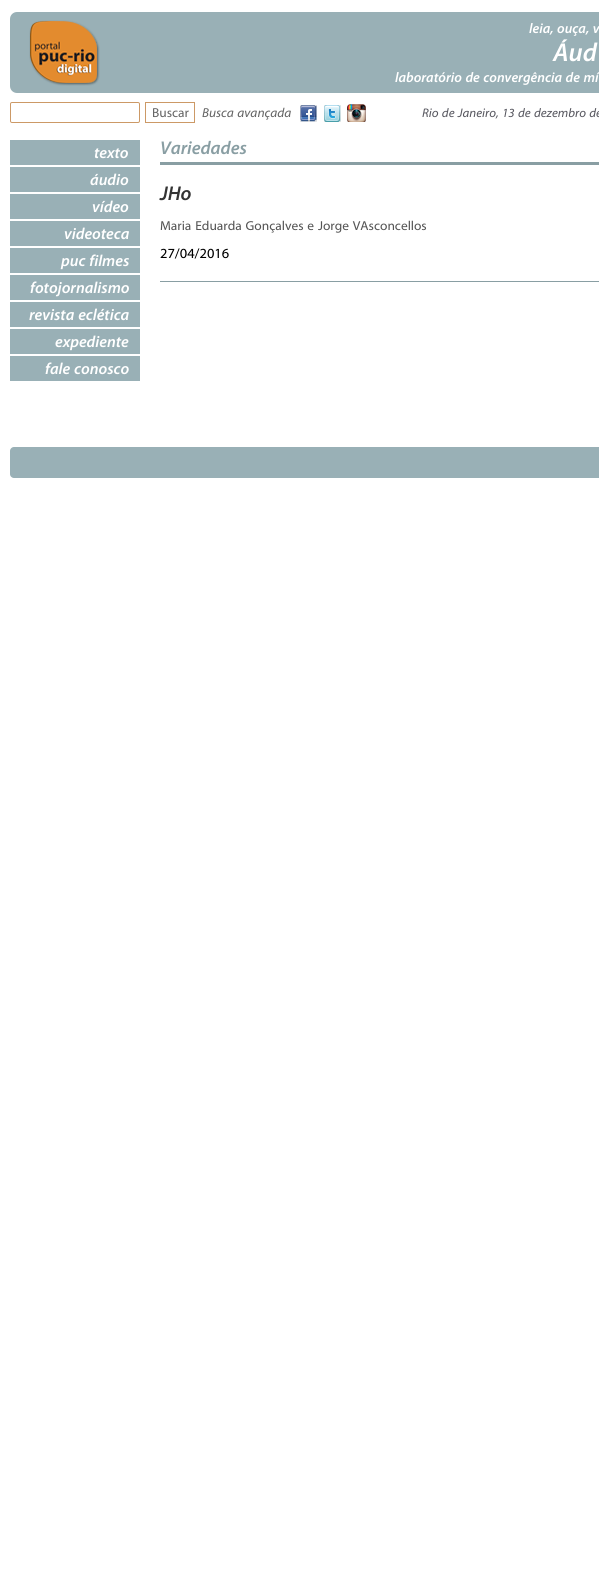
#include <cairo.h>
#include <math.h>
#include <stddef.h>


static void set_color(cairo_t *cr, unsigned color) {
    cairo_set_source_rgb(cr, (color >> 16) / 255.0, (color >> 8 & 255) / 255.0, (color & 255) / 255.0);
}

static void draw_text(cairo_t *cr, double x, double y, const char *s, const char *family, double size, int italic, int bold, unsigned color) {
    cairo_select_font_face(cr, family, italic ? CAIRO_FONT_SLANT_ITALIC : CAIRO_FONT_SLANT_NORMAL,
        bold ? CAIRO_FONT_WEIGHT_BOLD : CAIRO_FONT_WEIGHT_NORMAL);
    cairo_set_font_size(cr, size);
    set_color(cr, color);
    cairo_move_to(cr, x, y);
    cairo_show_text(cr, s);
}

static void draw_spaced(cairo_t *cr, double x, double y, const char *s, double letter, double word) {
    cairo_move_to(cr, x, y);
    while (*s) {
        char ch[5] = {0};
        int n = 0;
        do ch[n++] = *s++; while ((*s & 0xC0) == 0x80);
        cairo_show_text(cr, ch);
        cairo_rel_move_to(cr, letter + word * (*ch == ' '), 0);
    }
}

static void fill_rect(cairo_t *cr, double x, double y, double w, double h, unsigned color) {
    set_color(cr, color);
    cairo_rectangle(cr, x, y, w, h);
    cairo_fill(cr);
}

static void rounded_rect(cairo_t *cr, double x, double y, double w, double h, double r) {
    cairo_new_sub_path(cr);
    cairo_arc(cr, x + w - r, y + h - r, r, 0, M_PI / 2);
    cairo_arc(cr, x + r, y + h - r, r, M_PI / 2, M_PI);
    cairo_arc(cr, x + r, y + r, r, M_PI, 1.5 * M_PI);
    cairo_arc(cr, x + w - r, y + r, r, 1.5 * M_PI, 2 * M_PI);
    cairo_close_path(cr);
}

static void draw_image(cairo_t *cr, const char *path, double x, double y, double w, double h) {
    cairo_surface_t *image = cairo_image_surface_create_from_png(path);
    cairo_save(cr);
    cairo_set_source_surface(cr, image, x, y);
    cairo_rectangle(cr, x, y, w, h);
    cairo_fill(cr);
    cairo_restore(cr);
    cairo_surface_destroy(image);
}

int main(void) {
    cairo_surface_t *surface = cairo_image_surface_create(CAIRO_FORMAT_RGB24, 599, 1583);
    cairo_t *cr = cairo_create(surface);
    cairo_font_options_t *options = cairo_font_options_create();
    cairo_font_options_set_hint_metrics(options, CAIRO_HINT_METRICS_OFF);
    cairo_font_options_set_hint_style(options, CAIRO_HINT_STYLE_NONE);
    cairo_set_font_options(cr, options);
    cairo_set_miter_limit(cr, 4);
    set_color(cr, 0xFFFFFF);
    cairo_paint(cr);
    set_color(cr, 0x99B0B6);
    rounded_rect(cr, 10, 12, 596, 81, 7);
    cairo_fill(cr);
    draw_image(cr, "assets/img1.png", 29, 20, 71, 66);
    cairo_select_font_face(cr, "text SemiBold", CAIRO_FONT_SLANT_ITALIC, CAIRO_FONT_WEIGHT_NORMAL);
    cairo_set_font_size(cr, 14);
    set_color(cr, 0xFFFFFF);
    draw_spaced(cr, 529, 33, "leia, ouça, v", 0, 1);
    draw_text(cr, 553, 61, "Áud", "text SemiBold", 26, 1, 0, 0xFFFFFF);
    cairo_set_font_size(cr, 14);
    draw_spaced(cr, 395, 82, "laboratório de convergência de mí", 0, 1);
    rounded_rect(cr, 10.5, 102.5, 129, 20, 1.5);
    set_color(cr, 0xCC9966);
    cairo_set_line_width(cr, 1);
    cairo_stroke(cr);
    cairo_rectangle(cr, 145.5, 102.5, 49, 20);
    cairo_stroke(cr);
    draw_text(cr, 152, 117, "Buscar", "text", 13, 0, 0, 0x666666);
    cairo_select_font_face(cr, "text", CAIRO_FONT_SLANT_ITALIC, CAIRO_FONT_WEIGHT_NORMAL);
    draw_spaced(cr, 202, 117, "Busca avançada", 0, 1);
    draw_image(cr, "assets/img2.png", 300, 105, 17, 17);
    draw_image(cr, "assets/img3.png", 324, 105, 17, 17);
    draw_image(cr, "assets/img4.png", 347, 104, 19, 18);
    cairo_set_font_size(cr, 12.5);
    set_color(cr, 0x585860);
    draw_spaced(cr, 422, 117, "Rio de Janeiro, 13 de dezembro de", 0, 1);
    fill_rect(cr, 10, 140, 130, 25, 0x99B0B6);
    draw_text(cr, 94, 158, "texto", "text SemiBold", 16, 1, 0, 0xFFFFFF);
    fill_rect(cr, 10, 167, 130, 25, 0x99B0B6);
    draw_text(cr, 90, 185, "áudio", "text SemiBold", 16, 1, 0, 0xFFFFFF);
    fill_rect(cr, 10, 194, 130, 25, 0x99B0B6);
    draw_text(cr, 92, 212, "vídeo", "text SemiBold", 16, 1, 0, 0xFFFFFF);
    fill_rect(cr, 10, 221, 130, 25, 0x99B0B6);
    draw_text(cr, 64, 239, "videoteca", "text SemiBold", 16, 1, 0, 0xFFFFFF);
    fill_rect(cr, 10, 248, 130, 25, 0x99B0B6);
    set_color(cr, 0xFFFFFF);
    draw_spaced(cr, 61, 266, "puc filmes", 0, 1);
    fill_rect(cr, 10, 275, 130, 25, 0x99B0B6);
    draw_text(cr, 30, 293, "fotojornalismo", "text SemiBold", 16, 1, 0, 0xFFFFFF);
    fill_rect(cr, 10, 302, 130, 25, 0x99B0B6);
    set_color(cr, 0xFFFFFF);
    draw_spaced(cr, 29, 320, "revista eclética", 0, 1);
    fill_rect(cr, 10, 329, 130, 25, 0x99B0B6);
    draw_text(cr, 55, 347, "expediente", "text SemiBold", 16, 1, 0, 0xFFFFFF);
    fill_rect(cr, 10, 356, 130, 25, 0x99B0B6);
    set_color(cr, 0xFFFFFF);
    draw_spaced(cr, 45, 374, "fale conosco", 0, 1);
    fill_rect(cr, 160, 281, 439, 1, 0x899EA3);
    fill_rect(cr, 160, 162, 439, 3, 0x899EA3);
    draw_text(cr, 160, 154, "Variedades", "text SemiBold", 18.5, 1, 0, 0x899EA3);
    draw_text(cr, 160, 200, "JHo", "text SemiBold", 20, 1, 0, 0x333333);
    cairo_select_font_face(cr, "text", CAIRO_FONT_SLANT_NORMAL, CAIRO_FONT_WEIGHT_NORMAL);
    cairo_set_font_size(cr, 13);
    set_color(cr, 0x555555);
    draw_spaced(cr, 160, 230, "Maria Eduarda Gonçalves e Jorge VAsconcellos", 0, 1);
    draw_text(cr, 160, 258, "27/04/2016", "text", 14, 0, 0, 0x000000);
    set_color(cr, 0x99B0B6);
    rounded_rect(cr, 10, 447, 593, 31, 4);
    cairo_fill(cr);
    cairo_surface_write_to_png(surface, "output.png");
    cairo_font_options_destroy(options);
    cairo_destroy(cr);
    cairo_surface_destroy(surface);
    return 0;
}
